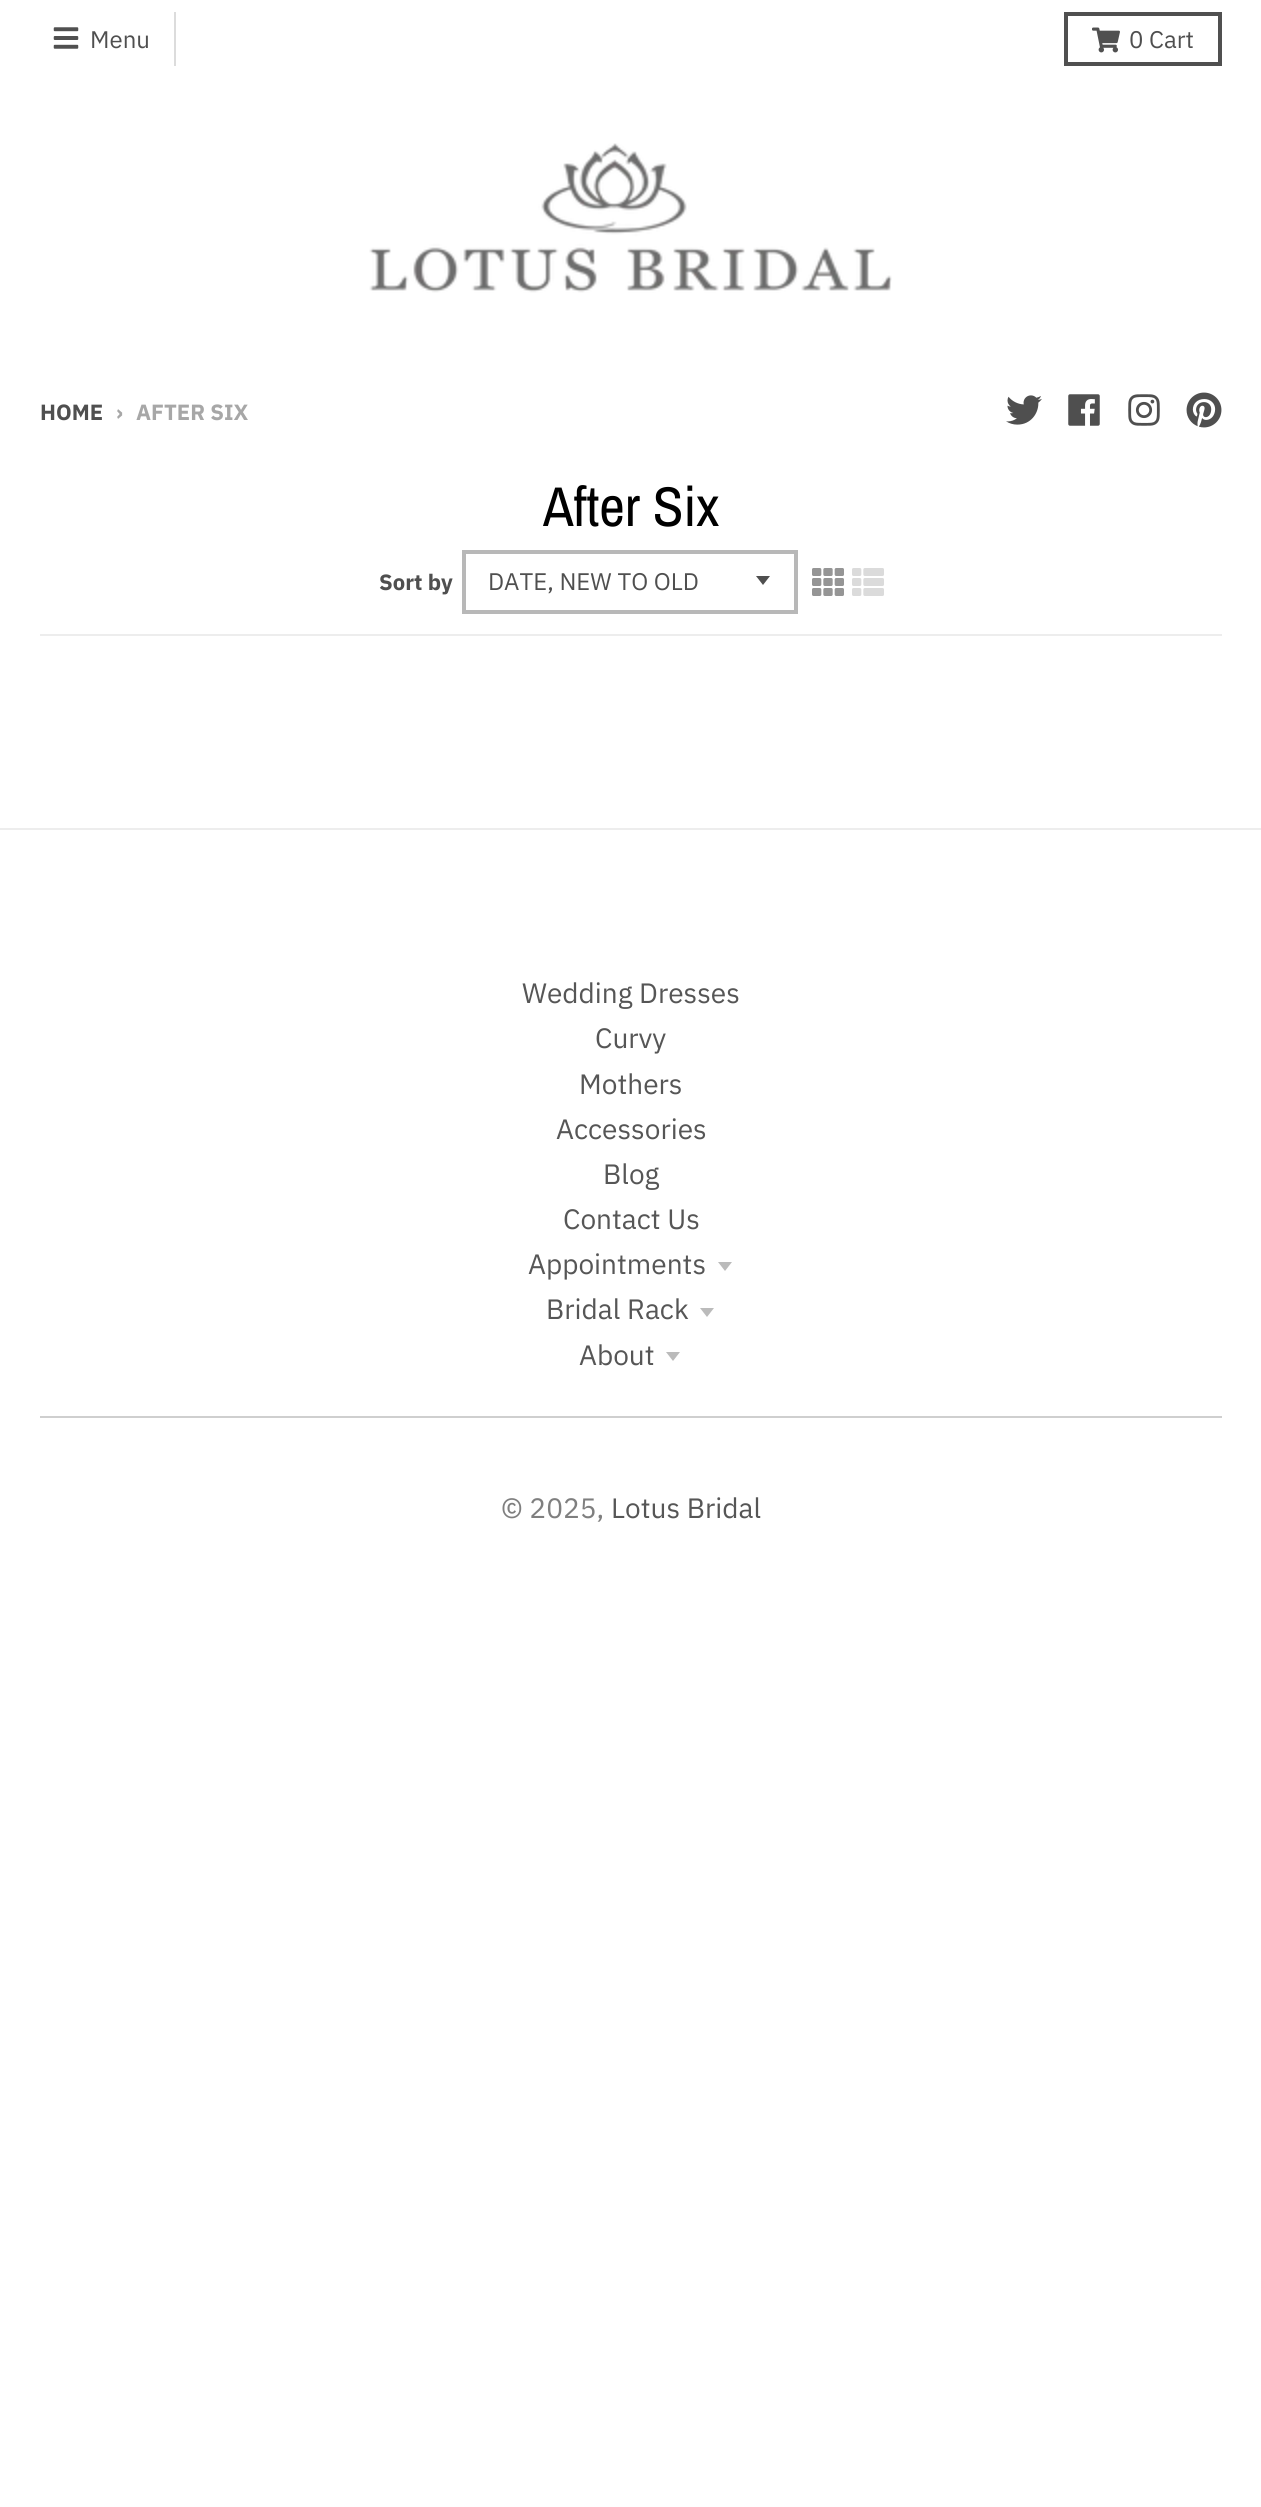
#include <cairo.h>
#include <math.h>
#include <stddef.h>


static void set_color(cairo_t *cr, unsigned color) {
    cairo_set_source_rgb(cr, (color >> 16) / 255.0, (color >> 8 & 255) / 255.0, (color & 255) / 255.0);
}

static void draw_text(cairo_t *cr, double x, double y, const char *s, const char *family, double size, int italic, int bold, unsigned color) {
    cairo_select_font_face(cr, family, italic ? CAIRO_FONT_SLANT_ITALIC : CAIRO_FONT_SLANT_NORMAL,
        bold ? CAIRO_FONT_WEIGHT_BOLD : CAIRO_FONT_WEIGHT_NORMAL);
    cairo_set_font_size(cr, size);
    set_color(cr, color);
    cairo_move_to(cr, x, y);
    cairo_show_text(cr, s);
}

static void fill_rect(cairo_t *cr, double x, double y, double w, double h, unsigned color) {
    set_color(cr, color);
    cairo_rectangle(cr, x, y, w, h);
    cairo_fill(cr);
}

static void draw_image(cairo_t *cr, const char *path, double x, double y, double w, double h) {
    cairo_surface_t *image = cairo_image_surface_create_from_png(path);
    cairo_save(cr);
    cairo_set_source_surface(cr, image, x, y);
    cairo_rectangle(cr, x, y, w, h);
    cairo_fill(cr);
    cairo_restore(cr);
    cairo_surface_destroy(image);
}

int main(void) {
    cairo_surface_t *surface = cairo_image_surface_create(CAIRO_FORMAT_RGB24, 1261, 2507);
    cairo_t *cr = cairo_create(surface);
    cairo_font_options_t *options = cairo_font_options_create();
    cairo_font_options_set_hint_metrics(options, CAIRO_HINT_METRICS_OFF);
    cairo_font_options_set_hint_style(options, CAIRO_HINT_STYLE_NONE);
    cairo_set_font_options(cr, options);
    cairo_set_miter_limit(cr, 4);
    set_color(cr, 0xFFFFFF);
    cairo_paint(cr);
    fill_rect(cr, 174, 12, 2, 54, 0xDCDCDC);
    draw_image(cr, "assets/img1.png", 53, 27, 26, 22);
    draw_text(cr, 90, 48, "Menu", "IBM Plex Sans", 24, 0, 0, 0x4F4F4F);
    cairo_rectangle(cr, 1066, 14, 154, 50);
    set_color(cr, 0x505050);
    cairo_set_line_width(cr, 4);
    cairo_stroke(cr);
    draw_image(cr, "assets/img2.png", 1092, 27, 28, 26);
    draw_text(cr, 1129, 48, "0 Cart", "IBM Plex Sans", 24, 0, 0, 0x4F4F4F);
    draw_image(cr, "assets/img3.png", 369, 143, 523, 150);
    fill_rect(cr, 0, 828, 1261, 2, 0xEDEDED);
    draw_text(cr, 40, 420, "HOME", "IBM Plex Sans", 22, 0, 1, 0x4F4F4F);
    draw_text(cr, 116, 420, "›", "IBM Plex Sans", 22, 0, 1, 0xA7A7A7);
    draw_text(cr, 136, 420, "AFTER SIX", "IBM Plex Sans", 22, 0, 1, 0xA7A7A7);
    draw_image(cr, "assets/img4.png", 1006, 395, 36, 30);
    draw_image(cr, "assets/img5.png", 1068, 394, 32, 32);
    draw_image(cr, "assets/img6.png", 1128, 394, 32, 32);
    draw_image(cr, "assets/img7.png", 1186, 392, 36, 36);
    fill_rect(cr, 40, 634, 1182, 2, 0xEDEDED);
    draw_text(cr, 543, 526, "After Six", "Archivo Narrow", 56, 0, 0, 0x000000);
    draw_text(cr, 379, 590, "Sort by", "IBM Plex Sans", 22, 0, 1, 0x4F4F4F);
    cairo_new_path(cr);
    cairo_move_to(cr, 756, 576);
    cairo_line_to(cr, 763, 585);
    cairo_line_to(cr, 770, 576);
    cairo_close_path(cr);
    cairo_fill(cr);
    cairo_rectangle(cr, 464, 552, 332, 60);
    set_color(cr, 0xB8B8B8);
    cairo_stroke(cr);
    draw_text(cr, 488, 590, "DATE, NEW TO OLD", "IBM Plex Sans", 24, 0, 0, 0x4F4F4F);
    draw_image(cr, "assets/img8.png", 812, 568, 32, 28);
    draw_image(cr, "assets/img9.png", 852, 568, 32, 28);
    draw_text(cr, 522, 1003, "Wedding Dresses", "IBM Plex Sans", 28, 0, 0, 0x565656);
    draw_text(cr, 595, 1048, "Curvy", "IBM Plex Sans", 28, 0, 0, 0x565656);
    draw_text(cr, 579, 1094, "Mothers", "IBM Plex Sans", 28, 0, 0, 0x565656);
    draw_text(cr, 556, 1139, "Accessories", "IBM Plex Sans", 28, 0, 0, 0x565656);
    draw_text(cr, 603, 1184, "Blog", "IBM Plex Sans", 28, 0, 0, 0x565656);
    draw_text(cr, 563, 1229, "Contact Us", "IBM Plex Sans", 28, 0, 0, 0x565656);
    draw_text(cr, 528, 1274, "Appointments", "IBM Plex Sans", 28, 0, 0, 0x565656);
    set_color(cr, 0xBBBBBB);
    cairo_new_path(cr);
    cairo_move_to(cr, 718, 1262);
    cairo_line_to(cr, 725, 1271);
    cairo_line_to(cr, 732, 1262);
    cairo_close_path(cr);
    cairo_fill(cr);
    draw_text(cr, 546, 1319, "Bridal Rack", "IBM Plex Sans", 28, 0, 0, 0x565656);
    set_color(cr, 0xBBBBBB);
    cairo_new_path(cr);
    cairo_move_to(cr, 700, 1308);
    cairo_line_to(cr, 707, 1317);
    cairo_line_to(cr, 714, 1308);
    cairo_close_path(cr);
    cairo_fill(cr);
    draw_text(cr, 579, 1365, "About", "IBM Plex Sans", 28, 0, 0, 0x565656);
    set_color(cr, 0xBBBBBB);
    cairo_new_path(cr);
    cairo_move_to(cr, 666, 1352);
    cairo_line_to(cr, 673, 1361);
    cairo_line_to(cr, 680, 1352);
    cairo_close_path(cr);
    cairo_fill(cr);
    fill_rect(cr, 40, 1416, 1182, 2, 0xCFCFCF);
    draw_text(cr, 501, 1518, "© 2025,", "IBM Plex Sans", 28, 0, 0, 0x7F7F7F);
    draw_text(cr, 611, 1518, "Lotus Bridal", "IBM Plex Sans", 28, 0, 0, 0x565656);
    cairo_surface_write_to_png(surface, "output.png");
    cairo_font_options_destroy(options);
    cairo_destroy(cr);
    cairo_surface_destroy(surface);
    return 0;
}
